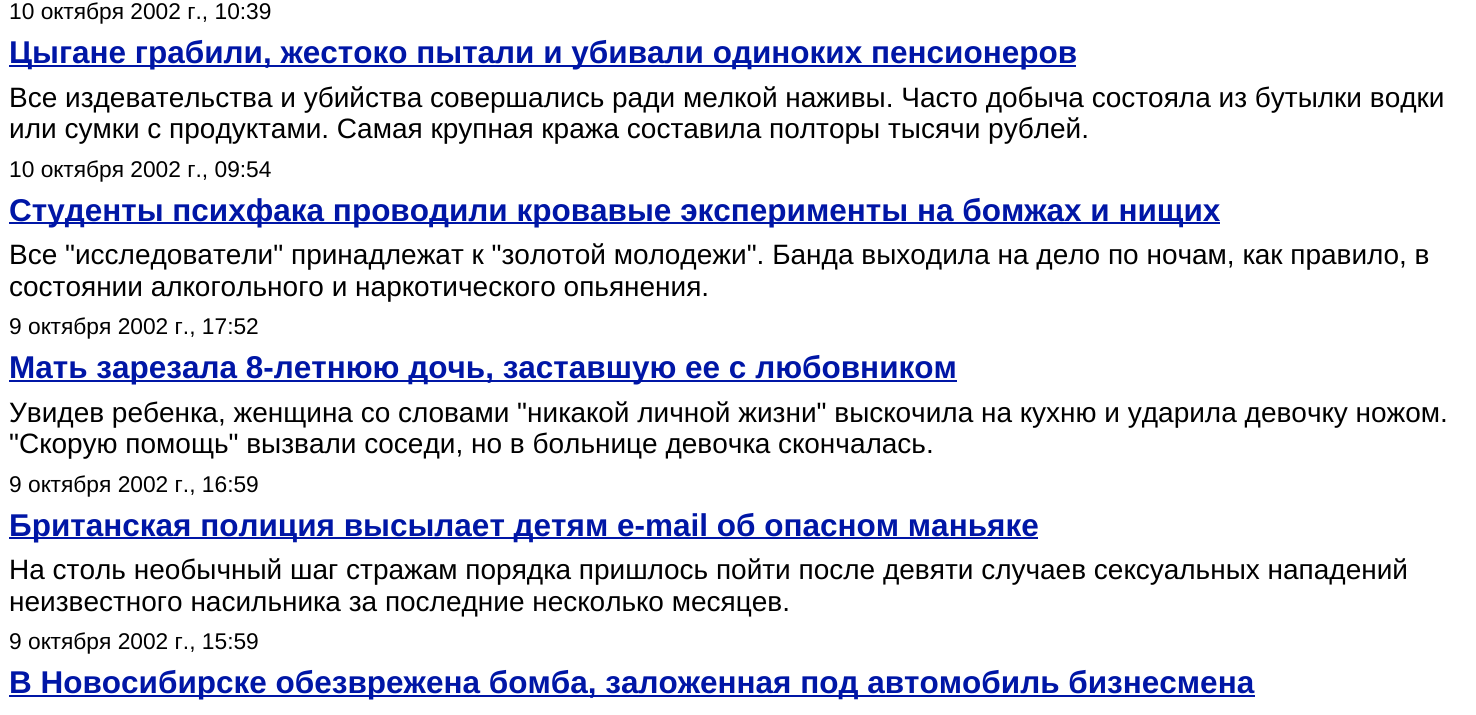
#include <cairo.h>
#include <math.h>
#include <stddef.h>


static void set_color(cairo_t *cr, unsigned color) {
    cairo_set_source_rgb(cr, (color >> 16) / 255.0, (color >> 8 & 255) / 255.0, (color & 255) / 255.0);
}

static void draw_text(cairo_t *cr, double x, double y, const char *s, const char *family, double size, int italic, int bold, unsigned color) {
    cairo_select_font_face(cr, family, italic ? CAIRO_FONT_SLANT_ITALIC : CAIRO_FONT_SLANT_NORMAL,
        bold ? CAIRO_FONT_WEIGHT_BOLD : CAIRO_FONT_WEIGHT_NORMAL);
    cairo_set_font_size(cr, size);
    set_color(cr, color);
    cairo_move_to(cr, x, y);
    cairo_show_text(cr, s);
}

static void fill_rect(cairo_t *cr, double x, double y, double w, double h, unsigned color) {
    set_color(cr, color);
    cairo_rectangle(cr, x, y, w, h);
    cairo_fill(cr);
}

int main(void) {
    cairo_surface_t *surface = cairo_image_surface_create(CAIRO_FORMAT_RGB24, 1476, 715);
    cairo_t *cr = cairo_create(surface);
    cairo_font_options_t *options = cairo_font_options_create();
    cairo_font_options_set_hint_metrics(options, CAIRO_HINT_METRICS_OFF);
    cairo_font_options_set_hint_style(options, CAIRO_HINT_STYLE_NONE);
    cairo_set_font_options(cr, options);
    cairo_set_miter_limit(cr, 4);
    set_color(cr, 0xFFFFFF);
    cairo_paint(cr);
    draw_text(cr, 9, 19, "10 октября 2002 г., 10:39", "Liberation Sans", 22.75, 0, 0, 0x000000);
    fill_rect(cr, 9, 65, 1067, 2, 0x0016A6);
    draw_text(cr, 9, 63, "Цыгане грабили, жестоко пытали и убивали одиноких пенсионеров", "Liberation Sans", 31.5, 0, 1, 0x0016A6);
    draw_text(cr, 9, 107, "Все издевательства и убийства совершались ради мелкой наживы. Часто добыча состояла из бутылки водки", "Liberation Sans", 28, 0, 0, 0x000000);
    draw_text(cr, 9, 138, "или сумки с продуктами. Самая крупная кража составила полторы тысячи рублей.", "Liberation Sans", 28, 0, 0, 0x000000);
    draw_text(cr, 9, 177, "10 октября 2002 г., 09:54", "Liberation Sans", 22.75, 0, 0, 0x000000);
    fill_rect(cr, 9, 222, 1211, 2, 0x0016A6);
    draw_text(cr, 9, 221, "Студенты психфака проводили кровавые эксперименты на бомжах и нищих", "Liberation Sans", 31.5, 0, 1, 0x0016A6);
    draw_text(cr, 9, 264, "Все \"исследователи\" принадлежат к \"золотой молодежи\". Банда выходила на дело по ночам, как правило, в", "Liberation Sans", 28, 0, 0, 0x000000);
    draw_text(cr, 9, 296, "состоянии алкогольного и наркотического опьянения.", "Liberation Sans", 28, 0, 0, 0x000000);
    draw_text(cr, 9, 334, "9 октября 2002 г., 17:52", "Liberation Sans", 22.75, 0, 0, 0x000000);
    fill_rect(cr, 9, 380, 948, 2, 0x0016A6);
    draw_text(cr, 9, 378, "Мать зарезала 8-летнюю дочь, заставшую ее с любовником", "Liberation Sans", 31.5, 0, 1, 0x0016A6);
    draw_text(cr, 9, 422, "Увидев ребенка, женщина со словами \"никакой личной жизни\" выскочила на кухню и ударила девочку ножом.", "Liberation Sans", 28, 0, 0, 0x000000);
    draw_text(cr, 9, 453, "\"Скорую помощь\" вызвали соседи, но в больнице девочка скончалась.", "Liberation Sans", 28, 0, 0, 0x000000);
    draw_text(cr, 9, 492, "9 октября 2002 г., 16:59", "Liberation Sans", 22.75, 0, 0, 0x000000);
    fill_rect(cr, 9, 537, 1029, 2, 0x0016A6);
    draw_text(cr, 9, 536, "Британская полиция высылает детям e-mail об опасном маньяке", "Liberation Sans", 31.5, 0, 1, 0x0016A6);
    draw_text(cr, 9, 579, "На столь необычный шаг стражам порядка пришлось пойти после девяти случаев сексуальных нападений", "Liberation Sans", 28, 0, 0, 0x000000);
    draw_text(cr, 9, 611, "неизвестного насильника за последние несколько месяцев.", "Liberation Sans", 28, 0, 0, 0x000000);
    draw_text(cr, 9, 649, "9 октября 2002 г., 15:59", "Liberation Sans", 22.75, 0, 0, 0x000000);
    fill_rect(cr, 9, 695, 1246, 2, 0x0016A6);
    draw_text(cr, 9, 693, "В Новосибирске обезврежена бомба, заложенная под автомобиль бизнесмена", "Liberation Sans", 31.5, 0, 1, 0x0016A6);
    cairo_surface_write_to_png(surface, "output.png");
    cairo_font_options_destroy(options);
    cairo_destroy(cr);
    cairo_surface_destroy(surface);
    return 0;
}
